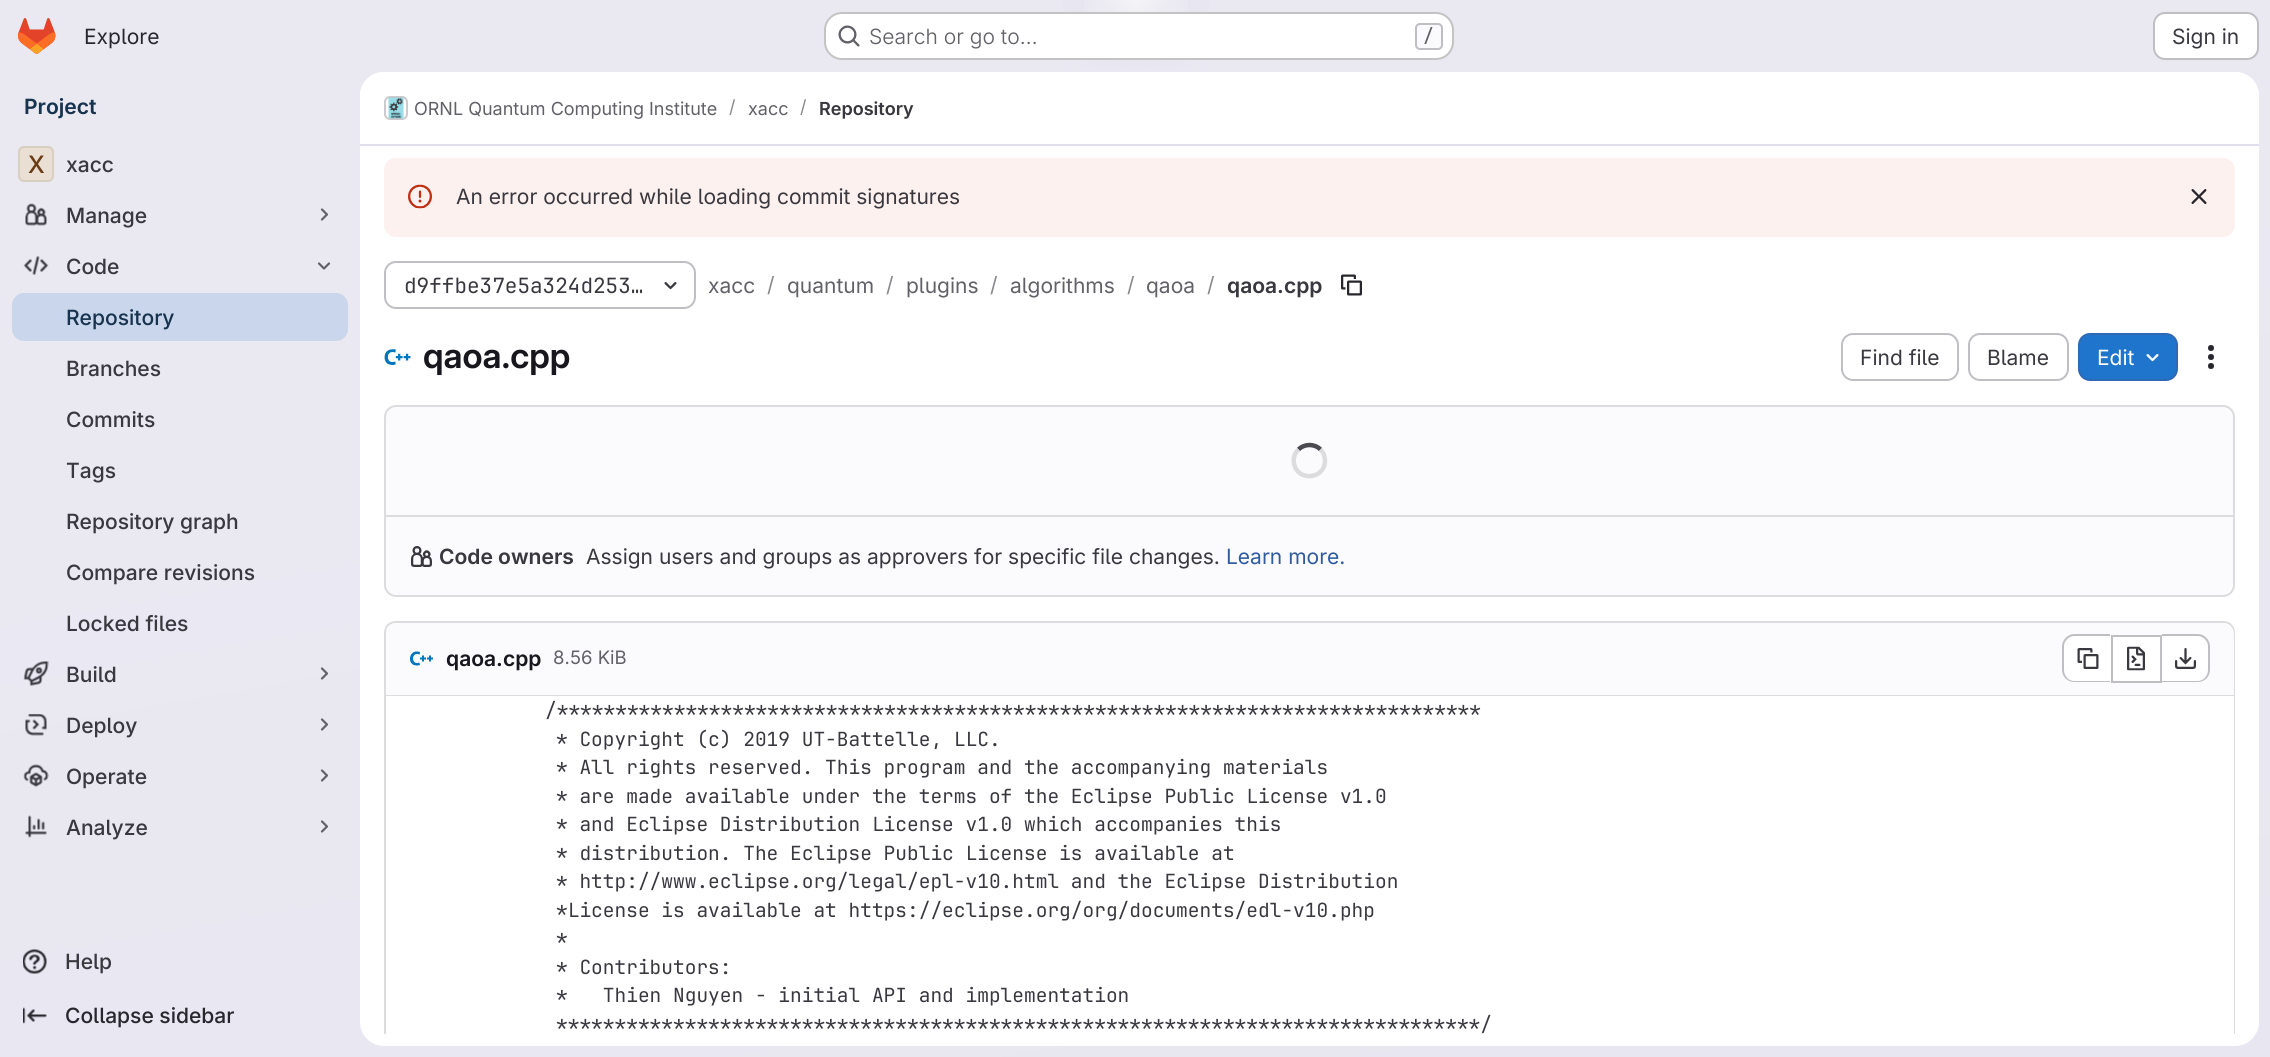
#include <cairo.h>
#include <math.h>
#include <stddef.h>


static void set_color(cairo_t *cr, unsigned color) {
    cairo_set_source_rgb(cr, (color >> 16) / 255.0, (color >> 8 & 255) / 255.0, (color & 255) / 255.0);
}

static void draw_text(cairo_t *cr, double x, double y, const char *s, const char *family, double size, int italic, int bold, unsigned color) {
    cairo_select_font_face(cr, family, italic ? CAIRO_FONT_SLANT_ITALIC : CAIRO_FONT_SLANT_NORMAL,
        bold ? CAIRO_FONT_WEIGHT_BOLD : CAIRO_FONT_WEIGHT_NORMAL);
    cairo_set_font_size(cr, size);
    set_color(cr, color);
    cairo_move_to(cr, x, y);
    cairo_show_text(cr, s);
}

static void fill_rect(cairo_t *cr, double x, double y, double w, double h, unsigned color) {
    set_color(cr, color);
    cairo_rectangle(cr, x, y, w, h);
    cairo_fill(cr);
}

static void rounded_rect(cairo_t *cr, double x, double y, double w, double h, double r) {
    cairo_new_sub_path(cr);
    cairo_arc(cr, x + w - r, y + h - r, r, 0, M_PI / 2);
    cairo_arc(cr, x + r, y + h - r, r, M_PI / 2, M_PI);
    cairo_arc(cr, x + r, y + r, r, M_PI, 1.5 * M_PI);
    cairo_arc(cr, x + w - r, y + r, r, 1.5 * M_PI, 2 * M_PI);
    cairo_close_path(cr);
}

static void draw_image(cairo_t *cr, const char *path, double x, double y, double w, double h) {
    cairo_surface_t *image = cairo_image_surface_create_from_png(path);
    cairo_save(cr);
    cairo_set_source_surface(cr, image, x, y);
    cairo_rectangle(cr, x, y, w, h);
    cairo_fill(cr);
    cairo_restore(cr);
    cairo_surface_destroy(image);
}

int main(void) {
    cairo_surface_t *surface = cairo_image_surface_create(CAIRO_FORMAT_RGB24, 2270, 1057);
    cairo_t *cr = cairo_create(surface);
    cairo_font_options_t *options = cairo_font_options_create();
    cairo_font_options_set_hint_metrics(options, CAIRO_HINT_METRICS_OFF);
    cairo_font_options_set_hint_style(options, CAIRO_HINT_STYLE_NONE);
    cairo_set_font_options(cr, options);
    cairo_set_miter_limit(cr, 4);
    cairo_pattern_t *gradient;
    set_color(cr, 0xFFFFFF);
    cairo_paint(cr);
    gradient = cairo_pattern_create_linear(1260, 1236, 1011, -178);
    cairo_pattern_add_color_stop_rgba(gradient, 0, 0.91, 0.902, 0.941, 1);
    cairo_pattern_add_color_stop_rgba(gradient, 0.7, 0.918, 0.914, 0.949, 1);
    cairo_set_source(cr, gradient);
    cairo_pattern_destroy(gradient);
    cairo_rectangle(cr, 0, 0, 2270, 1057);
    cairo_fill(cr);
    gradient = cairo_pattern_create_radial(0, 0, 0, 0, 0, 1);
    cairo_pattern_set_matrix(gradient, &(cairo_matrix_t){1.0 / 1136, 0, 0, 1.0 / 1058, -1.0 * 1136 / 1136, -1.0 * 0 / 1058});
    cairo_pattern_add_color_stop_rgba(gradient, 0, 0.894, 0.886, 0.929, 1);
    cairo_pattern_add_color_stop_rgba(gradient, 0.09, 0.894, 0.886, 0.929, 0);
    cairo_set_source(cr, gradient);
    cairo_pattern_destroy(gradient);
    cairo_rectangle(cr, 1063, 0, 146, 69);
    cairo_fill(cr);
    gradient = cairo_pattern_create_radial(0, 0, 0, 0, 0, 1);
    cairo_pattern_set_matrix(gradient, &(cairo_matrix_t){1.0 / 1136, 0, 0, 1.0 / 1058, -1.0 * 1136 / 1136, -1.0 * 0 / 1058});
    cairo_pattern_add_color_stop_rgba(gradient, 0, 0.894, 0.886, 0.925, 1);
    cairo_pattern_add_color_stop_rgba(gradient, 0.07, 0.894, 0.886, 0.925, 0);
    cairo_set_source(cr, gradient);
    cairo_pattern_destroy(gradient);
    cairo_rectangle(cr, 1101, 2, 70, 36);
    cairo_fill(cr);
    gradient = cairo_pattern_create_radial(1136, 0, 0, 1136, 0, 1552);
    cairo_pattern_add_color_stop_rgba(gradient, 0, 1, 1, 1, 0.6);
    cairo_pattern_add_color_stop_rgba(gradient, 0.04, 1, 1, 1, 0);
    cairo_set_source(cr, gradient);
    cairo_pattern_destroy(gradient);
    cairo_rectangle(cr, 1084, 0, 104, 12);
    cairo_fill(cr);
    draw_image(cr, "assets/img1.png", 18, 18, 38, 36);
    draw_text(cr, 84, 44, "Explore", "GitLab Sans", 21, 0, 0, 0x28272D);
    set_color(cr, 0xFFFFFF);
    rounded_rect(cr, 824, 12, 630, 48, 18);
    cairo_fill(cr);
    rounded_rect(cr, 825, 13, 628, 46, 17);
    cairo_set_source_rgba(cr, 0.02, 0.02, 0.024, 0.24);
    cairo_stroke(cr);
    draw_image(cr, "assets/img2.png", 838, 25, 22, 22);
    draw_text(cr, 869, 44, "Search or go to…", "GitLab Sans Light", 21, 0, 0, 0x626168);
    set_color(cr, 0xFBFAFD);
    rounded_rect(cr, 1416, 24, 26, 25, 4);
    cairo_fill_preserve(cr);
    set_color(cr, 0xBFBFC3);
    cairo_stroke(cr);
    draw_text(cr, 1423, 42, "/", "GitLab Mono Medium", 18, 0, 0, 0x626168);
    set_color(cr, 0xFFFFFF);
    rounded_rect(cr, 2154, 13, 104, 46, 11);
    cairo_fill_preserve(cr);
    set_color(cr, 0xBFBFC3);
    cairo_stroke(cr);
    draw_text(cr, 2172, 44, "Sign in", "GitLab Sans", 21, 0, 0, 0x3A383F);
    draw_text(cr, 24, 114, "Project", "GitLab Sans SemiBold", 21, 0, 0, 0x18334E);
    set_color(cr, 0xEADFD3);
    rounded_rect(cr, 18, 146, 36, 36, 6);
    cairo_fill(cr);
    rounded_rect(cr, 19, 147, 34, 34, 5);
    cairo_set_source_rgba(cr, 0.02, 0.02, 0.024, 0.08);
    cairo_stroke(cr);
    draw_text(cr, 28, 173, "X", "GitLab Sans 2 Medium", 24, 0, 0, 0x693C14);
    draw_text(cr, 66, 172, "xacc", "GitLab Sans Medium", 21, 0, 0, 0x3A383F);
    draw_image(cr, "assets/img3.png", 25, 203, 22, 23);
    draw_text(cr, 66, 223, "Manage", "GitLab Sans Medium", 21, 0, 0, 0x3A383F);
    cairo_new_path(cr);
    cairo_move_to(cr, 322, 209.5);
    cairo_line_to(cr, 327, 214.5);
    cairo_line_to(cr, 322, 219.5);
    set_color(cr, 0x626168);
    cairo_set_line_width(cr, 2.2);
    cairo_set_line_cap(cr, CAIRO_LINE_CAP_ROUND);
    cairo_set_line_join(cr, CAIRO_LINE_JOIN_ROUND);
    cairo_stroke(cr);
    draw_image(cr, "assets/img4.png", 23, 256, 26, 19);
    draw_text(cr, 66, 274, "Code", "GitLab Sans Medium", 21, 0, 0, 0x3A383F);
    cairo_new_path(cr);
    cairo_move_to(cr, 329, 263.5);
    cairo_line_to(cr, 324, 268.5);
    cairo_line_to(cr, 319, 263.5);
    set_color(cr, 0x626168);
    cairo_stroke(cr);
    set_color(cr, 0xC9D6EB);
    rounded_rect(cr, 12, 293, 336, 48, 12);
    cairo_fill(cr);
    draw_text(cr, 66, 325, "Repository", "GitLab Sans Medium", 21, 0, 0, 0x18334E);
    draw_text(cr, 66, 376, "Branches", "GitLab Sans Medium", 21, 0, 0, 0x3A383F);
    draw_text(cr, 66, 427, "Commits", "GitLab Sans Medium", 21, 0, 0, 0x3A383F);
    draw_text(cr, 66, 478, "Tags", "GitLab Sans Medium", 21, 0, 0, 0x3A383F);
    draw_text(cr, 66, 529, "Repository graph", "GitLab Sans Medium", 21, 0, 0, 0x3A383F);
    draw_text(cr, 66, 580, "Compare revisions", "GitLab Sans Medium", 21, 0, 0, 0x3A383F);
    draw_text(cr, 66, 631, "Locked files", "GitLab Sans Medium", 21, 0, 0, 0x3A383F);
    draw_image(cr, "assets/img5.png", 23, 661, 26, 25);
    draw_text(cr, 66, 682, "Build", "GitLab Sans Medium", 21, 0, 0, 0x3A383F);
    cairo_new_path(cr);
    cairo_move_to(cr, 322, 668.5);
    cairo_line_to(cr, 327, 673.5);
    cairo_line_to(cr, 322, 678.5);
    set_color(cr, 0x626168);
    cairo_stroke(cr);
    draw_image(cr, "assets/img6.png", 25, 714, 22, 22);
    draw_text(cr, 66, 733, "Deploy", "GitLab Sans Medium", 21, 0, 0, 0x3A383F);
    cairo_new_path(cr);
    cairo_move_to(cr, 322, 719.5);
    cairo_line_to(cr, 327, 724.5);
    cairo_line_to(cr, 322, 729.5);
    set_color(cr, 0x626168);
    cairo_stroke(cr);
    draw_image(cr, "assets/img7.png", 23, 764, 26, 23);
    draw_text(cr, 66, 784, "Operate", "GitLab Sans Medium", 21, 0, 0, 0x3A383F);
    cairo_new_path(cr);
    cairo_move_to(cr, 322, 770.5);
    cairo_line_to(cr, 327, 775.5);
    cairo_line_to(cr, 322, 780.5);
    set_color(cr, 0x626168);
    cairo_stroke(cr);
    draw_image(cr, "assets/img8.png", 25, 815, 22, 23);
    draw_text(cr, 66, 835, "Analyze", "GitLab Sans Medium", 21, 0, 0, 0x3A383F);
    cairo_new_path(cr);
    cairo_move_to(cr, 322, 821.5);
    cairo_line_to(cr, 327, 826.5);
    cairo_line_to(cr, 322, 831.5);
    set_color(cr, 0x626168);
    cairo_stroke(cr);
    draw_image(cr, "assets/img9.png", 23, 949, 24, 25);
    draw_text(cr, 65, 969, "Help", "GitLab Sans Medium", 21, 0, 0, 0x3A383F);
    draw_image(cr, "assets/img10.png", 23, 1007, 24, 17);
    draw_text(cr, 65, 1023, "Collapse sidebar", "GitLab Sans Medium", 21, 0, 0, 0x28272D);
    set_color(cr, 0xFFFFFF);
    rounded_rect(cr, 360, 72, 1899, 974, 24);
    cairo_fill(cr);
    cairo_new_path(cr);
    cairo_move_to(cr, 384, 72);
    cairo_line_to(cr, 2235, 72);
    cairo_curve_to(cr, 2248.5, 72, 2259, 82.5, 2259, 96);
    cairo_line_to(cr, 2259, 146);
    cairo_line_to(cr, 360, 146);
    cairo_line_to(cr, 360, 96);
    cairo_curve_to(cr, 360, 82.5, 370.5, 72, 384, 72);
    cairo_close_path(cr);
    cairo_fill(cr);
    fill_rect(cr, 360, 144, 1899, 2, 0xE1DFEC);
    rounded_rect(cr, 385, 97, 22, 22, 5);
    set_color(cr, 0xDCDCDE);
    cairo_set_line_width(cr, 2);
    cairo_set_line_cap(cr, CAIRO_LINE_CAP_BUTT);
    cairo_set_line_join(cr, CAIRO_LINE_JOIN_MITER);
    cairo_stroke(cr);
    draw_image(cr, "assets/img11.png", 388, 97, 16, 22);
    rounded_rect(cr, 385, 97, 22, 22, 5);
    cairo_set_source_rgba(cr, 0.02, 0.02, 0.024, 0.08);
    cairo_stroke(cr);
    draw_text(cr, 414, 115, "ORNL Quantum Computing Institute", "GitLab Sans", 18, 0, 0, 0x626168);
    draw_text(cr, 729, 113, "/", "GitLab Sans", 18, 0, 0, 0x89888D);
    draw_text(cr, 748, 115, "xacc", "GitLab Sans", 18, 0, 0, 0x626168);
    draw_text(cr, 800, 113, "/", "GitLab Sans", 18, 0, 0, 0x89888D);
    draw_text(cr, 819, 115, "Repository", "GitLab Sans SemiBold", 18, 0, 0, 0x3A383F);
    set_color(cr, 0xFCF1EF);
    rounded_rect(cr, 384, 158, 1851, 79, 12);
    cairo_fill(cr);
    draw_image(cr, "assets/img12.png", 408, 184, 24, 25);
    draw_text(cr, 456, 204, "An error occurred while loading commit signatures", "GitLab Sans", 21, 0, 0, 0x3A383F);
    draw_image(cr, "assets/img13.png", 2191, 189, 16, 15);
    rounded_rect(cr, 385, 262, 310, 46, 11);
    set_color(cr, 0xBFBFC3);
    cairo_stroke(cr);
    draw_text(cr, 404, 293, "d9ffbe37e5a324d253…", "GitLab Mono", 21, 0, 0, 0x3A383F);
    draw_image(cr, "assets/img14.png", 664, 282, 13, 8);
    draw_text(cr, 708, 293, "xacc", "GitLab Sans", 21, 0, 0, 0x626168);
    draw_text(cr, 767, 292, "/", "GitLab Sans", 21, 0, 0, 0x89888D);
    draw_text(cr, 787, 293, "quantum", "GitLab Sans", 21, 0, 0, 0x626168);
    draw_text(cr, 886, 292, "/", "GitLab Sans", 21, 0, 0, 0x89888D);
    draw_text(cr, 906, 293, "plugins", "GitLab Sans", 21, 0, 0, 0x626168);
    draw_text(cr, 990, 292, "/", "GitLab Sans", 21, 0, 0, 0x89888D);
    draw_text(cr, 1010, 293, "algorithms", "GitLab Sans", 21, 0, 0, 0x626168);
    draw_text(cr, 1127, 292, "/", "GitLab Sans", 21, 0, 0, 0x89888D);
    draw_text(cr, 1146, 293, "qaoa", "GitLab Sans", 21, 0, 0, 0x626168);
    draw_text(cr, 1207, 292, "/", "GitLab Sans", 21, 0, 0, 0x89888D);
    draw_text(cr, 1227, 293, "qaoa.cpp", "GitLab Sans SemiBold", 21, 0, 0, 0x3A383F);
    draw_image(cr, "assets/img15.png", 1341, 274, 21, 22);
    draw_image(cr, "assets/img16.png", 384, 349, 27, 16);
    draw_text(cr, 423, 368, "qaoa.cpp", "GitLab Sans 2 SemiBold", 34.5, 0, 0, 0x18171D);
    rounded_rect(cr, 1842, 334, 116, 46, 11);
    set_color(cr, 0xBFBFC3);
    cairo_stroke(cr);
    draw_text(cr, 1860, 365, "Find file", "GitLab Sans", 21, 0, 0, 0x3A383F);
    rounded_rect(cr, 1969, 334, 99, 46, 11);
    set_color(cr, 0xBFBFC3);
    cairo_stroke(cr);
    draw_text(cr, 1987, 365, "Blame", "GitLab Sans", 21, 0, 0, 0x3A383F);
    set_color(cr, 0x1F75CB);
    rounded_rect(cr, 2079, 334, 98, 46, 11);
    cairo_fill_preserve(cr);
    set_color(cr, 0x2F68B4);
    cairo_stroke(cr);
    draw_text(cr, 2097, 365, "Edit", "GitLab Sans", 21, 0, 0, 0xFFFFFF);
    draw_image(cr, "assets/img17.png", 2146, 354, 13, 8);
    draw_image(cr, "assets/img18.png", 2208, 345, 6, 24);
    set_color(cr, 0xFBFAFD);
    rounded_rect(cr, 385, 406, 1849, 190, 11);
    cairo_fill_preserve(cr);
    set_color(cr, 0xDCDCDE);
    cairo_stroke(cr);
    cairo_new_path(cr);
    cairo_move_to(cr, 1298.5, 449.5);
    cairo_curve_to(cr, 1304.5, 443.5, 1314.5, 443.5, 1320.5, 449.5);
    set_color(cr, 0x4C4B51);
    cairo_set_line_width(cr, 4.5);
    cairo_stroke(cr);
    cairo_new_path(cr);
    cairo_move_to(cr, 1320.5, 449.5);
    cairo_curve_to(cr, 1323.5, 452.5, 1325, 456.5, 1325, 460.5);
    cairo_curve_to(cr, 1325, 479.5, 1297.5, 482, 1294, 463.5);
    cairo_curve_to(cr, 1293, 458.5, 1294.5, 453, 1298.5, 449.5);
    set_color(cr, 0xDCDCDE);
    cairo_stroke(cr);
    fill_rect(cr, 386, 515, 1848, 2, 0xDCDCDE);
    draw_image(cr, "assets/img19.png", 411, 546, 21, 21);
    draw_text(cr, 439, 564, "Code owners", "GitLab Sans SemiBold", 21, 0, 0, 0x3A383F);
    draw_text(cr, 586, 564, "Assign users and groups as approvers for specific file changes.", "GitLab Sans", 21, 0, 0, 0x3A383F);
    draw_text(cr, 1226, 564, "Learn more.", "GitLab Sans", 21, 0, 0, 0x2F5CA0);
    cairo_save(cr);
    cairo_rectangle(cr, 360, 146, 1899, 888);
    cairo_clip(cr);
    set_color(cr, 0xDCDCDE);
    cairo_new_path(cr);
    cairo_move_to(cr, 396, 621);
    cairo_curve_to(cr, 389, 621, 384, 626, 384, 633);
    cairo_line_to(cr, 384, 1046);
    cairo_line_to(cr, 386, 1046);
    cairo_line_to(cr, 386, 633);
    cairo_curve_to(cr, 386, 627, 390, 623, 396, 623);
    cairo_line_to(cr, 2223, 623);
    cairo_curve_to(cr, 2229, 623, 2233, 627, 2233, 633);
    cairo_line_to(cr, 2233, 1046);
    cairo_line_to(cr, 2235, 1046);
    cairo_line_to(cr, 2235, 633);
    cairo_curve_to(cr, 2235, 626, 2230, 621, 2223, 621);
    cairo_close_path(cr);
    cairo_fill(cr);
    cairo_restore(cr);
    set_color(cr, 0xFBFAFD);
    cairo_new_path(cr);
    cairo_move_to(cr, 397, 623);
    cairo_line_to(cr, 2223, 623);
    cairo_curve_to(cr, 2229, 623, 2234, 628, 2234, 634);
    cairo_line_to(cr, 2234, 696);
    cairo_line_to(cr, 386, 696);
    cairo_line_to(cr, 386, 634);
    cairo_curve_to(cr, 386, 628, 391, 623, 397, 623);
    cairo_close_path(cr);
    cairo_fill(cr);
    fill_rect(cr, 386, 695, 1848, 1, 0xDCDCDE);
    draw_image(cr, "assets/img20.png", 410, 651, 23, 15);
    draw_text(cr, 446, 666, "qaoa.cpp", "GitLab Sans SemiBold", 21, 0, 0, 0x18171D);
    draw_text(cr, 553, 664, "8.56 KiB", "GitLab Sans", 18.5, 0, 0, 0x626168);
    set_color(cr, 0xFFFFFF);
    cairo_new_path(cr);
    cairo_move_to(cr, 2075, 636);
    cairo_line_to(cr, 2111, 636);
    cairo_line_to(cr, 2111, 681);
    cairo_line_to(cr, 2075, 681);
    cairo_curve_to(cr, 2069, 681, 2064, 676, 2064, 670);
    cairo_line_to(cr, 2064, 647);
    cairo_curve_to(cr, 2064, 641, 2069, 636, 2075, 636);
    cairo_close_path(cr);
    cairo_fill(cr);
    set_color(cr, 0xBFBFC3);
    cairo_set_fill_rule(cr, CAIRO_FILL_RULE_EVEN_ODD);
    cairo_new_path(cr);
    cairo_move_to(cr, 2074, 634);
    cairo_line_to(cr, 2110, 634);
    cairo_line_to(cr, 2110, 682);
    cairo_line_to(cr, 2074, 682);
    cairo_curve_to(cr, 2068, 682, 2062, 677, 2062, 670);
    cairo_line_to(cr, 2062, 646);
    cairo_curve_to(cr, 2062, 640, 2068, 634, 2074, 634);
    cairo_close_path(cr);
    cairo_move_to(cr, 2074, 636);
    cairo_line_to(cr, 2110, 636);
    cairo_line_to(cr, 2110, 681);
    cairo_line_to(cr, 2074, 681);
    cairo_curve_to(cr, 2069, 681, 2064, 676, 2064, 670);
    cairo_line_to(cr, 2064, 646);
    cairo_curve_to(cr, 2064, 641, 2069, 636, 2074, 636);
    cairo_close_path(cr);
    cairo_fill(cr);
    draw_image(cr, "assets/img21.png", 2077, 648, 22, 21);
    fill_rect(cr, 2113, 637, 47, 44, 0xFFFFFF);
    fill_rect(cr, 2112, 635, 48, 2, 0xBFBFC3);
    fill_rect(cr, 2112, 681, 48, 2, 0xBFBFC3);
    fill_rect(cr, 2111, 635, 2, 48, 0xBFBFC3);
    draw_image(cr, "assets/img22.png", 2127, 646, 18, 25);
    set_color(cr, 0xFFFFFF);
    cairo_new_path(cr);
    cairo_move_to(cr, 2162, 636);
    cairo_line_to(cr, 2197, 636);
    cairo_curve_to(cr, 2203, 636, 2208, 641, 2208, 647);
    cairo_line_to(cr, 2208, 670);
    cairo_curve_to(cr, 2208, 676, 2203, 681, 2197, 681);
    cairo_line_to(cr, 2162, 681);
    cairo_close_path(cr);
    cairo_fill(cr);
    set_color(cr, 0xBFBFC3);
    cairo_new_path(cr);
    cairo_move_to(cr, 2162, 634);
    cairo_line_to(cr, 2198, 634);
    cairo_curve_to(cr, 2204, 634, 2210, 640, 2210, 646);
    cairo_line_to(cr, 2210, 670);
    cairo_curve_to(cr, 2210, 677, 2204, 682, 2198, 682);
    cairo_line_to(cr, 2162, 682);
    cairo_close_path(cr);
    cairo_move_to(cr, 2162, 636);
    cairo_line_to(cr, 2198, 636);
    cairo_curve_to(cr, 2203, 636, 2208, 641, 2208, 646);
    cairo_line_to(cr, 2208, 670);
    cairo_curve_to(cr, 2208, 676, 2203, 681, 2198, 681);
    cairo_line_to(cr, 2162, 681);
    cairo_close_path(cr);
    cairo_fill(cr);
    fill_rect(cr, 2160, 635, 2, 48, 0xBFBFC3);
    draw_image(cr, "assets/img23.png", 2175, 648, 21, 21);
    fill_rect(cr, 2233, 696, 1, 338, 0xFFFFFF);
    draw_text(cr, 545, 717, "/*******************************************************************************", "GitLab Mono", 19.5, 0, 0, 0x3A383F);
    draw_text(cr, 556, 746, "* Copyright (c) 2019 UT-Battelle, LLC.", "GitLab Mono", 19.5, 0, 0, 0x3A383F);
    draw_text(cr, 556, 774, "* All rights reserved. This program and the accompanying materials", "GitLab Mono", 19.5, 0, 0, 0x3A383F);
    draw_text(cr, 556, 803, "* are made available under the terms of the Eclipse Public License v1.0", "GitLab Mono", 19.5, 0, 0, 0x3A383F);
    draw_text(cr, 556, 831, "* and Eclipse Distribution License v1.0 which accompanies this", "GitLab Mono", 19.5, 0, 0, 0x3A383F);
    draw_text(cr, 556, 860, "* distribution. The Eclipse Public License is available at", "GitLab Mono", 19.5, 0, 0, 0x3A383F);
    draw_text(cr, 556, 888, "* http://www.eclipse.org/legal/epl-v10.html and the Eclipse Distribution", "GitLab Mono", 19.5, 0, 0, 0x3A383F);
    draw_text(cr, 556, 917, "*License is available at https://eclipse.org/org/documents/edl-v10.php", "GitLab Mono", 19.5, 0, 0, 0x3A383F);
    draw_text(cr, 556, 945, "*", "GitLab Mono", 19.5, 0, 0, 0x3A383F);
    draw_text(cr, 556, 974, "* Contributors:", "GitLab Mono", 19.5, 0, 0, 0x3A383F);
    draw_text(cr, 556, 1002, "*   Thien Nguyen - initial API and implementation", "GitLab Mono", 19.5, 0, 0, 0x3A383F);
    draw_text(cr, 556, 1031, "*******************************************************************************/", "GitLab Mono", 19.5, 0, 0, 0x3A383F);
    cairo_surface_write_to_png(surface, "output.png");
    cairo_font_options_destroy(options);
    cairo_destroy(cr);
    cairo_surface_destroy(surface);
    return 0;
}
